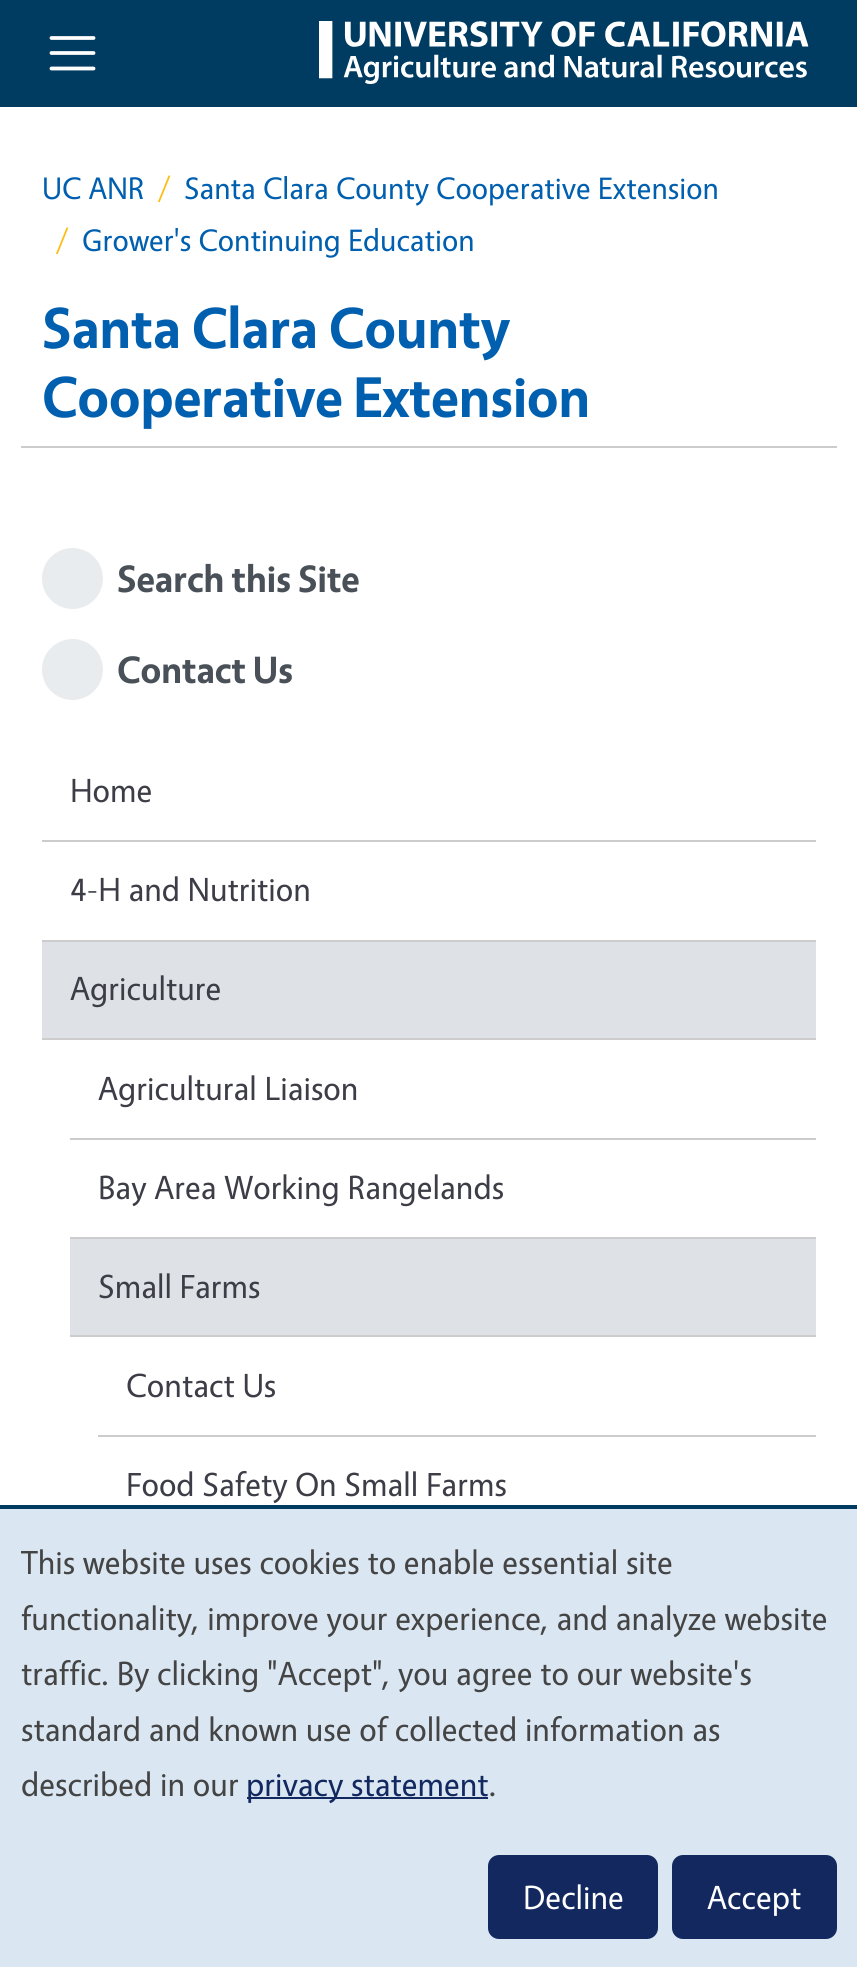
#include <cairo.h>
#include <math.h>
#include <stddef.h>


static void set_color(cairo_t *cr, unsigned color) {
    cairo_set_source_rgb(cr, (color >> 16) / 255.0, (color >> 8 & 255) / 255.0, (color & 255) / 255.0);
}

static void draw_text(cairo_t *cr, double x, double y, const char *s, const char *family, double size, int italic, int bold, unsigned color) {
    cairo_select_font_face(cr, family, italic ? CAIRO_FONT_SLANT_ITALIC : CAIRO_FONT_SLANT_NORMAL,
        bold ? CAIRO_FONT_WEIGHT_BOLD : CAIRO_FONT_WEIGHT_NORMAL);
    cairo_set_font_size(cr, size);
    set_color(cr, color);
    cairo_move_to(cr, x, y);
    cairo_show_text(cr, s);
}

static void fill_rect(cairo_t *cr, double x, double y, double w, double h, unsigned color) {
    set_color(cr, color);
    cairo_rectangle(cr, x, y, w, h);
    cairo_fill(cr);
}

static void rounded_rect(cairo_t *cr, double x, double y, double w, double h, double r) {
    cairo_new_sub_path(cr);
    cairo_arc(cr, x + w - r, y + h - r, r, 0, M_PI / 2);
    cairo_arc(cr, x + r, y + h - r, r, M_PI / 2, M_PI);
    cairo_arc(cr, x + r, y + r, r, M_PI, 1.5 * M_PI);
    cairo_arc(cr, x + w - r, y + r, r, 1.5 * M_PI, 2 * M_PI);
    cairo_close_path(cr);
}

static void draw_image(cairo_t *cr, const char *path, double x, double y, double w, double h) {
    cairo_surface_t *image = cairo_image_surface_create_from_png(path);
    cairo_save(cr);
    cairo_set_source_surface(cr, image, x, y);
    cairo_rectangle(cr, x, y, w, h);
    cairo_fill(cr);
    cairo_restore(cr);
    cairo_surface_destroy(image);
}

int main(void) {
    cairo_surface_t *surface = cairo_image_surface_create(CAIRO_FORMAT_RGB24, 857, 1967);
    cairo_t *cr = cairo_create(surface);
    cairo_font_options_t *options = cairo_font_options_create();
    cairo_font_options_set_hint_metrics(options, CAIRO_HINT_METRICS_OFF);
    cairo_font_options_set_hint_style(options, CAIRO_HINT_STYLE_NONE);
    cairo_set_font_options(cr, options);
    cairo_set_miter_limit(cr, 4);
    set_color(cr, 0xFFFFFF);
    cairo_paint(cr);
    fill_rect(cr, 0, 0, 857, 107, 0x003C61);
    cairo_new_path(cr);
    cairo_move_to(cr, 51.5, 38);
    cairo_line_to(cr, 93.5, 38);
    cairo_move_to(cr, 51.5, 53);
    cairo_line_to(cr, 93.5, 53);
    cairo_move_to(cr, 51.5, 68.5);
    cairo_line_to(cr, 93.5, 68.5);
    set_color(cr, 0xFFFFFF);
    cairo_set_line_width(cr, 3.8);
    cairo_set_line_cap(cr, CAIRO_LINE_CAP_ROUND);
    cairo_stroke(cr);
    draw_image(cr, "assets/img1.png", 319, 21, 490, 63);
    draw_text(cr, 42, 199, "UC ANR", "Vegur", 31.25, 0, 0, 0x005FAE);
    draw_text(cr, 158, 199, "/", "Vegur", 31.25, 0, 0, 0xFDBD10);
    draw_text(cr, 184, 199, "Santa Clara County Cooperative Extension", "Vegur", 31.25, 0, 0, 0x005FAE);
    draw_text(cr, 56, 251, "/", "Vegur", 31.25, 0, 0, 0xFDBD10);
    draw_text(cr, 82, 251, "Grower's Continuing Education", "Vegur", 31.25, 0, 0, 0x005FAE);
    fill_rect(cr, 21, 446, 816, 2, 0xCCCCCC);
    draw_text(cr, 42, 348, "Santa Clara County", "Vegur", 58, 0, 1, 0x005FAE);
    draw_text(cr, 42, 417, "Cooperative Extension", "Vegur", 58, 0, 1, 0x005FAE);
    set_color(cr, 0xE9ECEF);
    cairo_new_path(cr);
    cairo_arc(cr, 72.5, 578.5, 30.5, 0, 2 * M_PI);
    cairo_fill(cr);
    draw_text(cr, 117, 592, "Search this Site", "Vegur", 38.25, 0, 1, 0x495057);
    set_color(cr, 0xE9ECEF);
    cairo_new_path(cr);
    cairo_arc(cr, 72.5, 669.5, 30.5, 0, 2 * M_PI);
    cairo_fill(cr);
    draw_text(cr, 117, 683, "Contact Us", "Vegur", 38.25, 0, 1, 0x495057);
    fill_rect(cr, 42, 840, 774, 2, 0xCCCCCC);
    draw_text(cr, 70, 802, "Home", "Vegur", 33.6, 0, 0, 0x3D3D47);
    fill_rect(cr, 42, 940, 774, 2, 0xCCCCCC);
    draw_text(cr, 70, 901, "4-H and Nutrition", "Vegur", 33.6, 0, 0, 0x3D3D47);
    fill_rect(cr, 42, 942, 774, 96, 0xDEE2E6);
    fill_rect(cr, 42, 1038, 774, 2, 0xCCCCCC);
    draw_text(cr, 70, 1000, "Agriculture", "Vegur", 33.6, 0, 0, 0x3D3D47);
    fill_rect(cr, 70, 1138, 746, 2, 0xCCCCCC);
    draw_text(cr, 98, 1100, "Agricultural Liaison", "Vegur", 33.6, 0, 0, 0x3D3D47);
    fill_rect(cr, 70, 1237, 746, 2, 0xCCCCCC);
    draw_text(cr, 98, 1199, "Bay Area Working Rangelands", "Vegur", 33.6, 0, 0, 0x3D3D47);
    fill_rect(cr, 70, 1239, 746, 96, 0xDEE2E6);
    fill_rect(cr, 70, 1335, 746, 2, 0xCCCCCC);
    draw_text(cr, 98, 1298, "Small Farms", "Vegur", 33.6, 0, 0, 0x3D3D47);
    fill_rect(cr, 98, 1435, 718, 2, 0xCCCCCC);
    draw_text(cr, 126, 1397, "Contact Us", "Vegur", 33.6, 0, 0, 0x3D3D47);
    draw_text(cr, 126, 1496, "Food Safety On Small Farms", "Vegur", 33.6, 0, 0, 0x3D3D47);
    fill_rect(cr, 0, 1509, 857, 458, 0xDAE7F3);
    fill_rect(cr, 0, 1505, 857, 4, 0x003C61);
    draw_text(cr, 21, 1574, "This website uses cookies to enable essential site", "Vegur", 33.6, 0, 0, 0x444444);
    draw_text(cr, 21, 1630, "functionality, improve your experience, and analyze website", "Vegur", 33.6, 0, 0, 0x444444);
    draw_text(cr, 21, 1685, "traffic. By clicking \"Accept\", you agree to our website's", "Vegur", 33.6, 0, 0, 0x444444);
    draw_text(cr, 21, 1741, "standard and known use of collected information as", "Vegur", 33.6, 0, 0, 0x444444);
    draw_text(cr, 21, 1796, "described in our", "Vegur", 33.6, 0, 0, 0x444444);
    fill_rect(cr, 247, 1797, 241, 2, 0x12285F);
    draw_text(cr, 246, 1796, "privacy statement", "Vegur", 33.6, 0, 0, 0x12285F);
    draw_text(cr, 489, 1796, ".", "Vegur", 33.6, 0, 0, 0x444444);
    set_color(cr, 0x12285F);
    rounded_rect(cr, 490.5, 1857.5, 165, 79, 8.5);
    cairo_fill_preserve(cr);
    cairo_set_line_width(cr, 5);
    cairo_set_line_cap(cr, CAIRO_LINE_CAP_BUTT);
    cairo_stroke(cr);
    draw_text(cr, 523, 1909, "Decline", "Vegur", 33.6, 0, 0, 0xFFFFFF);
    set_color(cr, 0x12285F);
    rounded_rect(cr, 674.5, 1857.5, 160, 79, 8.5);
    cairo_fill_preserve(cr);
    cairo_stroke(cr);
    draw_text(cr, 707, 1909, "Accept", "Vegur", 33.6, 0, 0, 0xFFFFFF);
    cairo_surface_write_to_png(surface, "output.png");
    cairo_font_options_destroy(options);
    cairo_destroy(cr);
    cairo_surface_destroy(surface);
    return 0;
}
